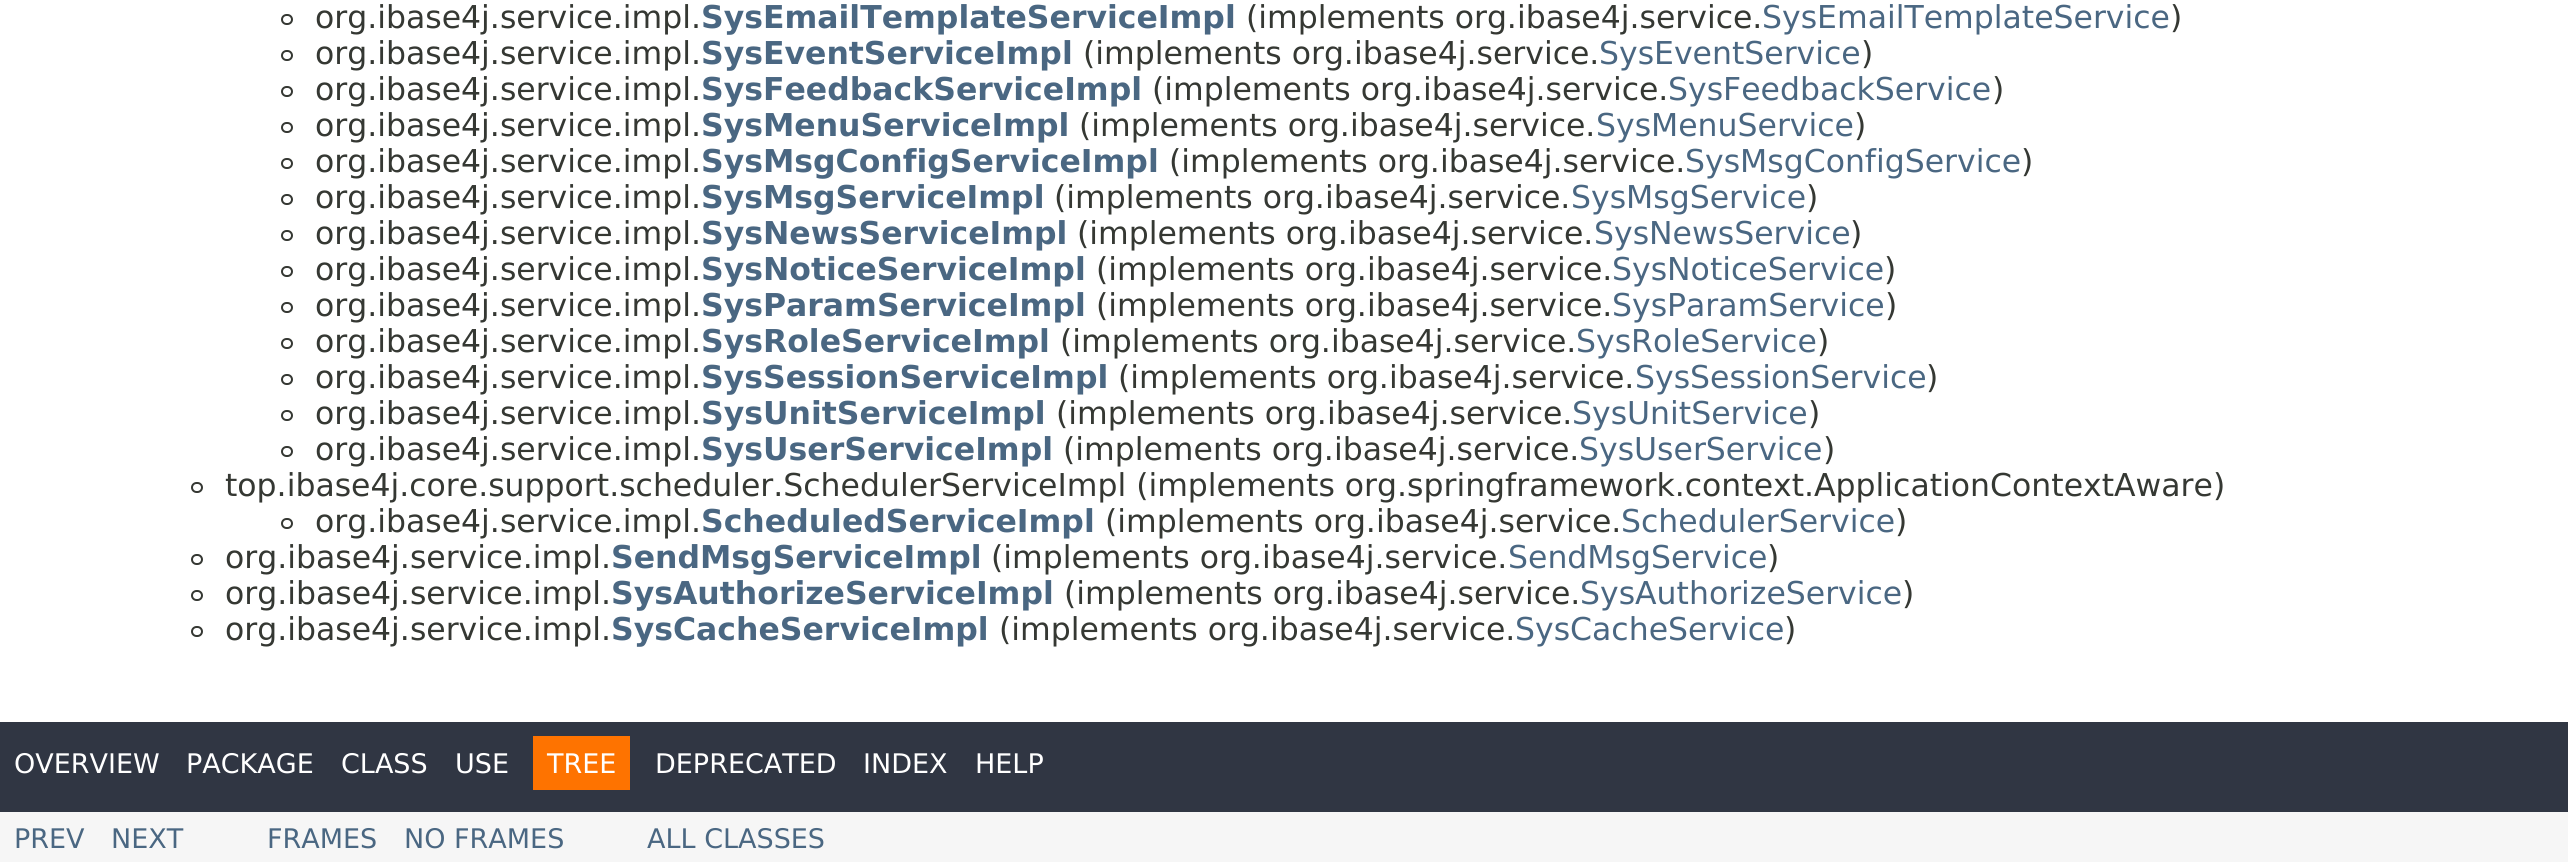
#include <cairo.h>
#include <math.h>
#include <stddef.h>


static void set_color(cairo_t *cr, unsigned color) {
    cairo_set_source_rgb(cr, (color >> 16) / 255.0, (color >> 8 & 255) / 255.0, (color & 255) / 255.0);
}

static void draw_text(cairo_t *cr, double x, double y, const char *s, const char *family, double size, int italic, int bold, unsigned color) {
    cairo_select_font_face(cr, family, italic ? CAIRO_FONT_SLANT_ITALIC : CAIRO_FONT_SLANT_NORMAL,
        bold ? CAIRO_FONT_WEIGHT_BOLD : CAIRO_FONT_WEIGHT_NORMAL);
    cairo_set_font_size(cr, size);
    set_color(cr, color);
    cairo_move_to(cr, x, y);
    cairo_show_text(cr, s);
}

static void fill_rect(cairo_t *cr, double x, double y, double w, double h, unsigned color) {
    set_color(cr, color);
    cairo_rectangle(cr, x, y, w, h);
    cairo_fill(cr);
}

static void rounded_rect(cairo_t *cr, double x, double y, double w, double h, double r) {
    cairo_new_sub_path(cr);
    cairo_arc(cr, x + w - r, y + h - r, r, 0, M_PI / 2);
    cairo_arc(cr, x + r, y + h - r, r, M_PI / 2, M_PI);
    cairo_arc(cr, x + r, y + r, r, M_PI, 1.5 * M_PI);
    cairo_arc(cr, x + w - r, y + r, r, 1.5 * M_PI, 2 * M_PI);
    cairo_close_path(cr);
}

int main(void) {
    cairo_surface_t *surface = cairo_image_surface_create(CAIRO_FORMAT_RGB24, 2568, 862);
    cairo_t *cr = cairo_create(surface);
    cairo_font_options_t *options = cairo_font_options_create();
    cairo_font_options_set_hint_metrics(options, CAIRO_HINT_METRICS_OFF);
    cairo_font_options_set_hint_style(options, CAIRO_HINT_STYLE_NONE);
    cairo_set_font_options(cr, options);
    cairo_set_miter_limit(cr, 4);
    set_color(cr, 0xFFFFFF);
    cairo_paint(cr);
    rounded_rect(cr, 282, 15, 10, 9, 4.5);
    set_color(cr, 0x353833);
    cairo_stroke(cr);
    draw_text(cr, 315, 28, "org.ibase4j.service.impl.", "DejaVu Sans", 31.5, 0, 0, 0x353833);
    draw_text(cr, 701, 28, "SysEmailTemplateServiceImpl", "DejaVu Sans", 31.5, 0, 1, 0x4A6782);
    draw_text(cr, 1246, 28, "(implements org.ibase4j.service.", "DejaVu Sans", 31.5, 0, 0, 0x353833);
    draw_text(cr, 1762, 28, "SysEmailTemplateService", "DejaVu Sans", 31.5, 0, 0, 0x4A6782);
    draw_text(cr, 2170, 28, ")", "DejaVu Sans", 31.5, 0, 0, 0x353833);
    rounded_rect(cr, 282, 51, 10, 9, 4.5);
    cairo_stroke(cr);
    draw_text(cr, 315, 64, "org.ibase4j.service.impl.", "DejaVu Sans", 31.5, 0, 0, 0x353833);
    draw_text(cr, 701, 64, "SysEventServiceImpl", "DejaVu Sans", 31.5, 0, 1, 0x4A6782);
    draw_text(cr, 1083, 64, "(implements org.ibase4j.service.", "DejaVu Sans", 31.5, 0, 0, 0x353833);
    draw_text(cr, 1599, 64, "SysEventService", "DejaVu Sans", 31.5, 0, 0, 0x4A6782);
    draw_text(cr, 1861, 64, ")", "DejaVu Sans", 31.5, 0, 0, 0x353833);
    rounded_rect(cr, 282, 87, 10, 9, 4.5);
    cairo_stroke(cr);
    draw_text(cr, 315, 100, "org.ibase4j.service.impl.", "DejaVu Sans", 31.5, 0, 0, 0x353833);
    draw_text(cr, 701, 100, "SysFeedbackServiceImpl", "DejaVu Sans", 31.5, 0, 1, 0x4A6782);
    draw_text(cr, 1152, 100, "(implements org.ibase4j.service.", "DejaVu Sans", 31.5, 0, 0, 0x353833);
    draw_text(cr, 1668, 100, "SysFeedbackService", "DejaVu Sans", 31.5, 0, 0, 0x4A6782);
    draw_text(cr, 1992, 100, ")", "DejaVu Sans", 31.5, 0, 0, 0x353833);
    rounded_rect(cr, 282, 123, 10, 9, 4.5);
    cairo_stroke(cr);
    draw_text(cr, 315, 136, "org.ibase4j.service.impl.", "DejaVu Sans", 31.5, 0, 0, 0x353833);
    draw_text(cr, 701, 136, "SysMenuServiceImpl", "DejaVu Sans", 31.5, 0, 1, 0x4A6782);
    draw_text(cr, 1079, 136, "(implements org.ibase4j.service.", "DejaVu Sans", 31.5, 0, 0, 0x353833);
    draw_text(cr, 1596, 136, "SysMenuService", "DejaVu Sans", 31.5, 0, 0, 0x4A6782);
    draw_text(cr, 1854, 136, ")", "DejaVu Sans", 31.5, 0, 0, 0x353833);
    rounded_rect(cr, 282, 159, 10, 9, 4.5);
    cairo_stroke(cr);
    draw_text(cr, 315, 172, "org.ibase4j.service.impl.", "DejaVu Sans", 31.5, 0, 0, 0x353833);
    draw_text(cr, 701, 172, "SysMsgConfigServiceImpl", "DejaVu Sans", 31.5, 0, 1, 0x4A6782);
    draw_text(cr, 1169, 172, "(implements org.ibase4j.service.", "DejaVu Sans", 31.5, 0, 0, 0x353833);
    draw_text(cr, 1685, 172, "SysMsgConfigService", "DejaVu Sans", 31.5, 0, 0, 0x4A6782);
    draw_text(cr, 2021, 172, ")", "DejaVu Sans", 31.5, 0, 0, 0x353833);
    rounded_rect(cr, 282, 195, 10, 9, 4.5);
    cairo_stroke(cr);
    draw_text(cr, 315, 208, "org.ibase4j.service.impl.", "DejaVu Sans", 31.5, 0, 0, 0x353833);
    draw_text(cr, 701, 208, "SysMsgServiceImpl", "DejaVu Sans", 31.5, 0, 1, 0x4A6782);
    draw_text(cr, 1054, 208, "(implements org.ibase4j.service.", "DejaVu Sans", 31.5, 0, 0, 0x353833);
    draw_text(cr, 1571, 208, "SysMsgService", "DejaVu Sans", 31.5, 0, 0, 0x4A6782);
    draw_text(cr, 1806, 208, ")", "DejaVu Sans", 31.5, 0, 0, 0x353833);
    rounded_rect(cr, 282, 231, 10, 9, 4.5);
    cairo_stroke(cr);
    draw_text(cr, 315, 244, "org.ibase4j.service.impl.", "DejaVu Sans", 31.5, 0, 0, 0x353833);
    draw_text(cr, 701, 244, "SysNewsServiceImpl", "DejaVu Sans", 31.5, 0, 1, 0x4A6782);
    draw_text(cr, 1077, 244, "(implements org.ibase4j.service.", "DejaVu Sans", 31.5, 0, 0, 0x353833);
    draw_text(cr, 1594, 244, "SysNewsService", "DejaVu Sans", 31.5, 0, 0, 0x4A6782);
    draw_text(cr, 1850, 244, ")", "DejaVu Sans", 31.5, 0, 0, 0x353833);
    rounded_rect(cr, 282, 267, 10, 9, 4.5);
    cairo_stroke(cr);
    draw_text(cr, 315, 280, "org.ibase4j.service.impl.", "DejaVu Sans", 31.5, 0, 0, 0x353833);
    draw_text(cr, 701, 280, "SysNoticeServiceImpl", "DejaVu Sans", 31.5, 0, 1, 0x4A6782);
    draw_text(cr, 1096, 280, "(implements org.ibase4j.service.", "DejaVu Sans", 31.5, 0, 0, 0x353833);
    draw_text(cr, 1612, 280, "SysNoticeService", "DejaVu Sans", 31.5, 0, 0, 0x4A6782);
    draw_text(cr, 1884, 280, ")", "DejaVu Sans", 31.5, 0, 0, 0x353833);
    rounded_rect(cr, 282, 303, 10, 9, 4.5);
    cairo_stroke(cr);
    draw_text(cr, 315, 316, "org.ibase4j.service.impl.", "DejaVu Sans", 31.5, 0, 0, 0x353833);
    draw_text(cr, 701, 316, "SysParamServiceImpl", "DejaVu Sans", 31.5, 0, 1, 0x4A6782);
    draw_text(cr, 1096, 316, "(implements org.ibase4j.service.", "DejaVu Sans", 31.5, 0, 0, 0x353833);
    draw_text(cr, 1612, 316, "SysParamService", "DejaVu Sans", 31.5, 0, 0, 0x4A6782);
    draw_text(cr, 1885, 316, ")", "DejaVu Sans", 31.5, 0, 0, 0x353833);
    rounded_rect(cr, 282, 339, 10, 9, 4.5);
    cairo_stroke(cr);
    draw_text(cr, 315, 352, "org.ibase4j.service.impl.", "DejaVu Sans", 31.5, 0, 0, 0x353833);
    draw_text(cr, 701, 352, "SysRoleServiceImpl", "DejaVu Sans", 31.5, 0, 1, 0x4A6782);
    draw_text(cr, 1060, 352, "(implements org.ibase4j.service.", "DejaVu Sans", 31.5, 0, 0, 0x353833);
    draw_text(cr, 1576, 352, "SysRoleService", "DejaVu Sans", 31.5, 0, 0, 0x4A6782);
    draw_text(cr, 1817, 352, ")", "DejaVu Sans", 31.5, 0, 0, 0x353833);
    rounded_rect(cr, 282, 375, 10, 9, 4.5);
    cairo_stroke(cr);
    draw_text(cr, 315, 388, "org.ibase4j.service.impl.", "DejaVu Sans", 31.5, 0, 0, 0x353833);
    draw_text(cr, 701, 388, "SysSessionServiceImpl", "DejaVu Sans", 31.5, 0, 1, 0x4A6782);
    draw_text(cr, 1118, 388, "(implements org.ibase4j.service.", "DejaVu Sans", 31.5, 0, 0, 0x353833);
    draw_text(cr, 1635, 388, "SysSessionService", "DejaVu Sans", 31.5, 0, 0, 0x4A6782);
    draw_text(cr, 1926, 388, ")", "DejaVu Sans", 31.5, 0, 0, 0x353833);
    rounded_rect(cr, 282, 411, 10, 9, 4.5);
    cairo_stroke(cr);
    draw_text(cr, 315, 424, "org.ibase4j.service.impl.", "DejaVu Sans", 31.5, 0, 0, 0x353833);
    draw_text(cr, 701, 424, "SysUnitServiceImpl", "DejaVu Sans", 31.5, 0, 1, 0x4A6782);
    draw_text(cr, 1056, 424, "(implements org.ibase4j.service.", "DejaVu Sans", 31.5, 0, 0, 0x353833);
    draw_text(cr, 1572, 424, "SysUnitService", "DejaVu Sans", 31.5, 0, 0, 0x4A6782);
    draw_text(cr, 1808, 424, ")", "DejaVu Sans", 31.5, 0, 0, 0x353833);
    rounded_rect(cr, 282, 447, 10, 9, 4.5);
    cairo_stroke(cr);
    draw_text(cr, 315, 460, "org.ibase4j.service.impl.", "DejaVu Sans", 31.5, 0, 0, 0x353833);
    draw_text(cr, 701, 460, "SysUserServiceImpl", "DejaVu Sans", 31.5, 0, 1, 0x4A6782);
    draw_text(cr, 1063, 460, "(implements org.ibase4j.service.", "DejaVu Sans", 31.5, 0, 0, 0x353833);
    draw_text(cr, 1579, 460, "SysUserService", "DejaVu Sans", 31.5, 0, 0, 0x4A6782);
    draw_text(cr, 1823, 460, ")", "DejaVu Sans", 31.5, 0, 0, 0x353833);
    rounded_rect(cr, 192, 483, 10, 9, 4.5);
    cairo_stroke(cr);
    draw_text(cr, 225, 496, "top.ibase4j.core.support.scheduler.SchedulerServiceImpl (implements org.springframework.context.ApplicationContextAware)", "DejaVu Sans", 31.5, 0, 0, 0x353833);
    rounded_rect(cr, 282, 519, 10, 9, 4.5);
    cairo_stroke(cr);
    draw_text(cr, 315, 532, "org.ibase4j.service.impl.", "DejaVu Sans", 31.5, 0, 0, 0x353833);
    draw_text(cr, 701, 532, "ScheduledServiceImpl", "DejaVu Sans", 31.5, 0, 1, 0x4A6782);
    draw_text(cr, 1105, 532, "(implements org.ibase4j.service.", "DejaVu Sans", 31.5, 0, 0, 0x353833);
    draw_text(cr, 1621, 532, "SchedulerService", "DejaVu Sans", 31.5, 0, 0, 0x4A6782);
    draw_text(cr, 1895, 532, ")", "DejaVu Sans", 31.5, 0, 0, 0x353833);
    rounded_rect(cr, 192, 555, 10, 9, 4.5);
    cairo_stroke(cr);
    draw_text(cr, 225, 568, "org.ibase4j.service.impl.", "DejaVu Sans", 31.5, 0, 0, 0x353833);
    draw_text(cr, 611, 568, "SendMsgServiceImpl", "DejaVu Sans", 31.5, 0, 1, 0x4A6782);
    draw_text(cr, 991, 568, "(implements org.ibase4j.service.", "DejaVu Sans", 31.5, 0, 0, 0x353833);
    draw_text(cr, 1508, 568, "SendMsgService", "DejaVu Sans", 31.5, 0, 0, 0x4A6782);
    draw_text(cr, 1767, 568, ")", "DejaVu Sans", 31.5, 0, 0, 0x353833);
    rounded_rect(cr, 192, 591, 10, 9, 4.5);
    cairo_stroke(cr);
    draw_text(cr, 225, 604, "org.ibase4j.service.impl.", "DejaVu Sans", 31.5, 0, 0, 0x353833);
    draw_text(cr, 611, 604, "SysAuthorizeServiceImpl", "DejaVu Sans", 31.5, 0, 1, 0x4A6782);
    draw_text(cr, 1064, 604, "(implements org.ibase4j.service.", "DejaVu Sans", 31.5, 0, 0, 0x353833);
    draw_text(cr, 1580, 604, "SysAuthorizeService", "DejaVu Sans", 31.5, 0, 0, 0x4A6782);
    draw_text(cr, 1902, 604, ")", "DejaVu Sans", 31.5, 0, 0, 0x353833);
    rounded_rect(cr, 192, 627, 10, 9, 4.5);
    cairo_stroke(cr);
    draw_text(cr, 225, 640, "org.ibase4j.service.impl.", "DejaVu Sans", 31.5, 0, 0, 0x353833);
    draw_text(cr, 611, 640, "SysCacheServiceImpl", "DejaVu Sans", 31.5, 0, 1, 0x4A6782);
    draw_text(cr, 999, 640, "(implements org.ibase4j.service.", "DejaVu Sans", 31.5, 0, 0, 0x353833);
    draw_text(cr, 1515, 640, "SysCacheService", "DejaVu Sans", 31.5, 0, 0, 0x4A6782);
    draw_text(cr, 1784, 640, ")", "DejaVu Sans", 31.5, 0, 0, 0x353833);
    fill_rect(cr, 0, 722, 2568, 90, 0x303643);
    draw_text(cr, 14, 773, "OVERVIEW", "DejaVu Sans", 27, 0, 0, 0xFFFFFF);
    draw_text(cr, 186, 773, "PACKAGE", "DejaVu Sans", 27, 0, 0, 0xFFFFFF);
    draw_text(cr, 341, 773, "CLASS", "DejaVu Sans", 27, 0, 0, 0xFFFFFF);
    draw_text(cr, 455, 773, "USE", "DejaVu Sans", 27, 0, 0, 0xFFFFFF);
    fill_rect(cr, 533, 736, 97, 54, 0xFE7300);
    draw_text(cr, 547, 773, "TREE", "DejaVu Sans", 27, 0, 0, 0xFFFFFF);
    draw_text(cr, 655, 773, "DEPRECATED", "DejaVu Sans", 27, 0, 0, 0xFFFFFF);
    draw_text(cr, 863, 773, "INDEX", "DejaVu Sans", 27, 0, 0, 0xFFFFFF);
    draw_text(cr, 975, 773, "HELP", "DejaVu Sans", 27, 0, 0, 0xFFFFFF);
    fill_rect(cr, 0, 812, 2568, 50, 0xF6F6F6);
    draw_text(cr, 14, 848, "PREV", "DejaVu Sans", 27, 0, 0, 0x4A6782);
    draw_text(cr, 111, 848, "NEXT", "DejaVu Sans", 27, 0, 0, 0x4A6782);
    draw_text(cr, 267, 848, "FRAMES", "DejaVu Sans", 27, 0, 0, 0x4A6782);
    draw_text(cr, 404, 848, "NO FRAMES", "DejaVu Sans", 27, 0, 0, 0x4A6782);
    draw_text(cr, 647, 848, "ALL CLASSES", "DejaVu Sans", 27, 0, 0, 0x4A6782);
    cairo_surface_write_to_png(surface, "output.png");
    cairo_font_options_destroy(options);
    cairo_destroy(cr);
    cairo_surface_destroy(surface);
    return 0;
}
